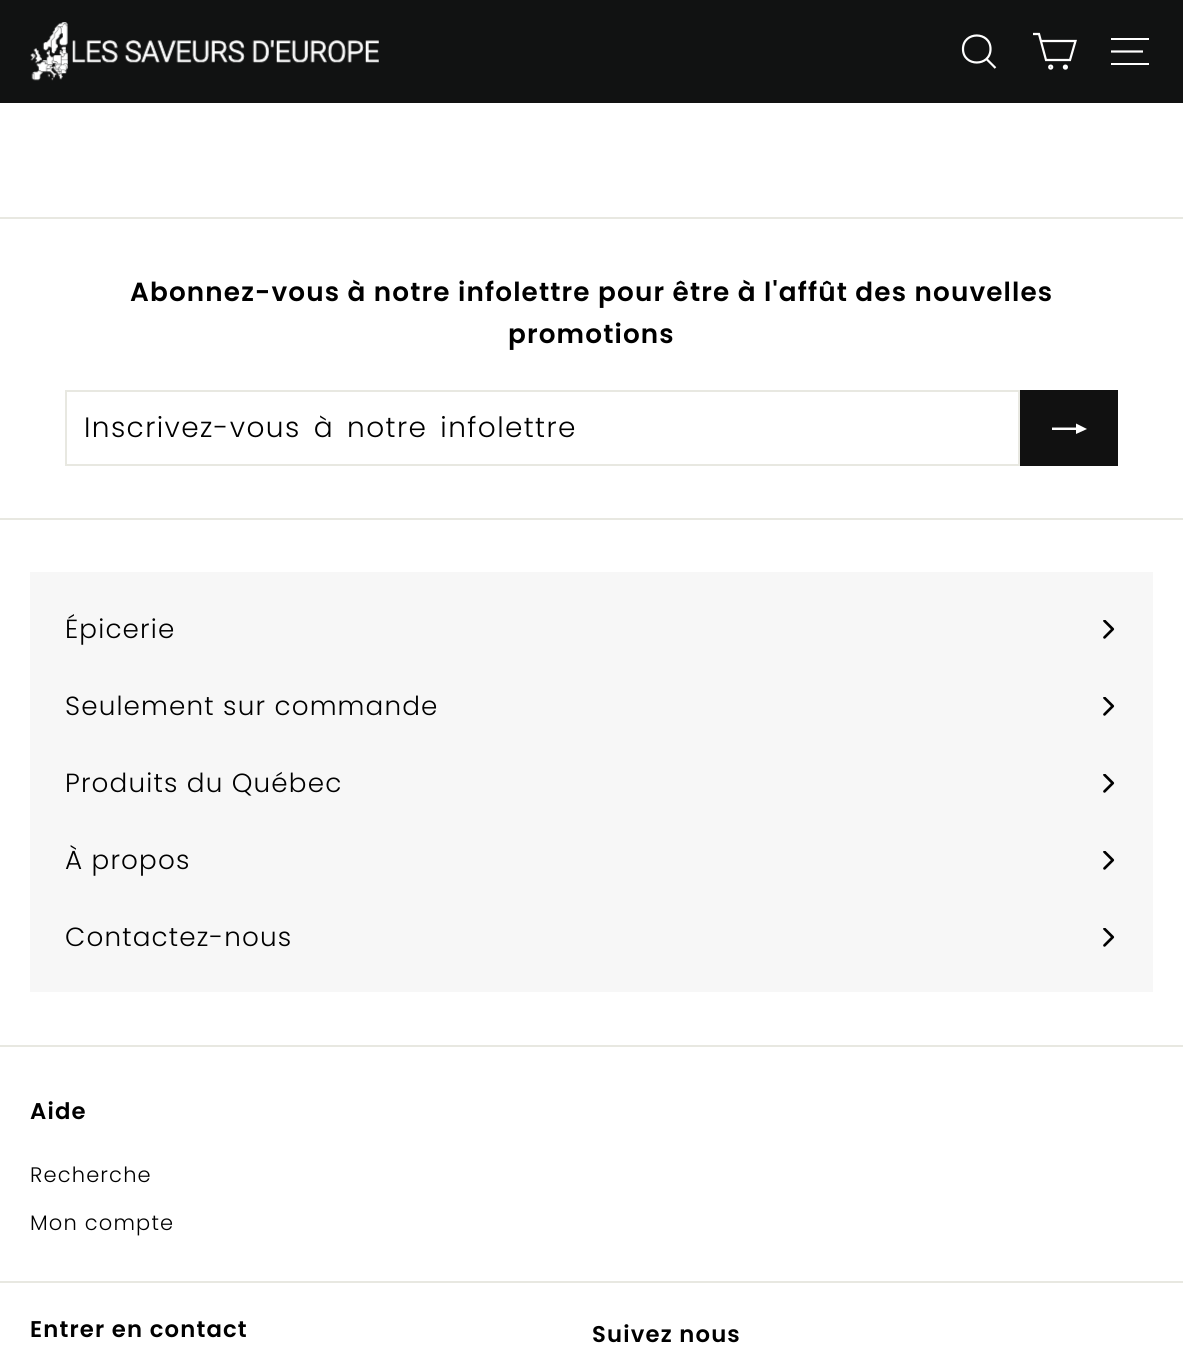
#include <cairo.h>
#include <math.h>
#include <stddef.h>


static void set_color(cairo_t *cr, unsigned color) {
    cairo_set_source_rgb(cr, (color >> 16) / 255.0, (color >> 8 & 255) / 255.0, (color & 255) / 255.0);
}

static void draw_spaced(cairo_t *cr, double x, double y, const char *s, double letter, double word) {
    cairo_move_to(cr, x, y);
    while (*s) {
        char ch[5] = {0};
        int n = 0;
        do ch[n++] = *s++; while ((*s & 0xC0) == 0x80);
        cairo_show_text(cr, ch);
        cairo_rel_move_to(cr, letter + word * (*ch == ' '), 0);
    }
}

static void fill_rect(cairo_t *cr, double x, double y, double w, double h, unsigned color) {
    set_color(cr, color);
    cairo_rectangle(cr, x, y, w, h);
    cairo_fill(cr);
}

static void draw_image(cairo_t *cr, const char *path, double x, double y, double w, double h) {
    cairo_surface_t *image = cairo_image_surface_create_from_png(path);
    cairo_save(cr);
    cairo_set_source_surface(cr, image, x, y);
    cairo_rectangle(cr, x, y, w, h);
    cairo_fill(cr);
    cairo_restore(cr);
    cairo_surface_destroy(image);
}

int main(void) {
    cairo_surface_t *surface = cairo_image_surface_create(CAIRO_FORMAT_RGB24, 1183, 1370);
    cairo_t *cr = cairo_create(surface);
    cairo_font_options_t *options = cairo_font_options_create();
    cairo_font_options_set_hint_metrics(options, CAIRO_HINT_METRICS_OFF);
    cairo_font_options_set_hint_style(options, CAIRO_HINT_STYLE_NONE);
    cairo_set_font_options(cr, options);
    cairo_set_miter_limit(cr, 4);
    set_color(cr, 0xFFFFFF);
    cairo_paint(cr);
    fill_rect(cr, 30, 572, 1123, 420, 0xF7F7F7);
    fill_rect(cr, 0, 0, 1183, 103, 0x111212);
    draw_image(cr, "assets/img1.png", 30, 22, 349, 59);
    cairo_new_path(cr);
    cairo_move_to(cr, 990.5, 49);
    cairo_curve_to(cr, 990.5, 67, 963, 67, 963, 49);
    cairo_curve_to(cr, 963, 31, 990.5, 31, 990.5, 49);
    cairo_close_path(cr);
    cairo_move_to(cr, 995.5, 68);
    cairo_line_to(cr, 986.5, 59);
    set_color(cr, 0xFFFFFF);
    cairo_set_line_width(cr, 2.2);
    cairo_stroke(cr);
    cairo_new_path(cr);
    cairo_move_to(cr, 1041, 41);
    cairo_line_to(cr, 1075.5, 41);
    cairo_line_to(cr, 1070, 60);
    cairo_line_to(cr, 1046, 60);
    cairo_line_to(cr, 1039, 34);
    cairo_line_to(cr, 1033, 34);
    cairo_stroke(cr);
    cairo_arc(cr, 1050.7, 67.1, 1.5, 0, 2 * M_PI);
    cairo_stroke(cr);
    cairo_arc(cr, 1065.4, 67.1, 1.5, 0, 2 * M_PI);
    cairo_fill_preserve(cr);
    cairo_stroke(cr);
    fill_rect(cr, 1111, 38, 38, 2, 0xFFFFFF);
    cairo_new_path(cr);
    cairo_move_to(cr, 1111, 51.5);
    cairo_line_to(cr, 1143, 51.5);
    cairo_stroke(cr);
    fill_rect(cr, 1111, 63, 38, 2, 0xFFFFFF);
    fill_rect(cr, 0, 217, 1183, 2, 0xE8E8E1);
    cairo_select_font_face(cr, "Poppins SemiBold", CAIRO_FONT_SLANT_NORMAL, CAIRO_FONT_WEIGHT_NORMAL);
    cairo_set_font_size(cr, 26.25);
    set_color(cr, 0x000000);
    draw_spaced(cr, 130, 301, "Abonnez-vous à notre infolettre pour être à l'affût des nouvelles", 1.15, 0);
    draw_spaced(cr, 508, 343, "promotions", 1.15, 0);
    cairo_rectangle(cr, 66, 391, 953, 74);
    set_color(cr, 0xE8E8E1);
    cairo_set_line_width(cr, 2);
    cairo_stroke(cr);
    cairo_select_font_face(cr, "Poppins Light", CAIRO_FONT_SLANT_NORMAL, CAIRO_FONT_WEIGHT_NORMAL);
    cairo_set_font_size(cr, 28);
    set_color(cr, 0x000000);
    draw_spaced(cr, 84, 437, "Inscrivez-vous à notre infolettre", 1.4, 4);
    fill_rect(cr, 1020, 390, 98, 76, 0x111111);
    set_color(cr, 0xFFFFFF);
    cairo_new_path(cr);
    cairo_move_to(cr, 1052, 430);
    cairo_line_to(cr, 1052, 427.5);
    cairo_line_to(cr, 1076, 427.5);
    cairo_line_to(cr, 1076, 423.5);
    cairo_line_to(cr, 1087, 429);
    cairo_line_to(cr, 1076, 434);
    cairo_line_to(cr, 1076, 430);
    cairo_close_path(cr);
    cairo_fill(cr);
    fill_rect(cr, 0, 518, 1183, 2, 0xE8E8E1);
    cairo_set_font_size(cr, 26.25);
    set_color(cr, 0x000000);
    draw_spaced(cr, 65, 638, "Épicerie", 1.15, 0);
    draw_image(cr, "assets/img2.png", 1103, 620, 12, 19);
    draw_spaced(cr, 65, 715, "Seulement sur commande", 1.15, 0);
    draw_image(cr, "assets/img2.png", 1103, 697, 12, 19);
    draw_spaced(cr, 65, 792, "Produits du Québec", 1.15, 0);
    draw_image(cr, "assets/img2.png", 1103, 774, 12, 19);
    draw_spaced(cr, 65, 869, "À propos", 1.15, 0);
    draw_image(cr, "assets/img2.png", 1103, 851, 12, 19);
    draw_spaced(cr, 65, 946, "Contactez-nous", 1.15, 0);
    draw_image(cr, "assets/img2.png", 1103, 928, 12, 19);
    fill_rect(cr, 0, 1045, 1183, 2, 0xE8E8E1);
    cairo_select_font_face(cr, "Poppins SemiBold", CAIRO_FONT_SLANT_NORMAL, CAIRO_FONT_WEIGHT_NORMAL);
    cairo_set_font_size(cr, 22.75);
    set_color(cr, 0x000000);
    draw_spaced(cr, 30, 1119, "Aide", 1.15, 0);
    cairo_select_font_face(cr, "Poppins Light", CAIRO_FONT_SLANT_NORMAL, CAIRO_FONT_WEIGHT_NORMAL);
    cairo_set_font_size(cr, 21);
    draw_spaced(cr, 30, 1182, "Recherche", 1.15, 0);
    draw_spaced(cr, 30, 1230, "Mon compte", 1.15, 0);
    fill_rect(cr, 0, 1281, 1183, 2, 0xE8E8E1);
    cairo_select_font_face(cr, "Poppins SemiBold", CAIRO_FONT_SLANT_NORMAL, CAIRO_FONT_WEIGHT_NORMAL);
    cairo_set_font_size(cr, 22.75);
    set_color(cr, 0x000000);
    draw_spaced(cr, 30, 1337, "Entrer en contact", 1.15, 0);
    draw_spaced(cr, 592, 1342, "Suivez nous", 1.15, 0);
    cairo_surface_write_to_png(surface, "output.png");
    cairo_font_options_destroy(options);
    cairo_destroy(cr);
    cairo_surface_destroy(surface);
    return 0;
}
